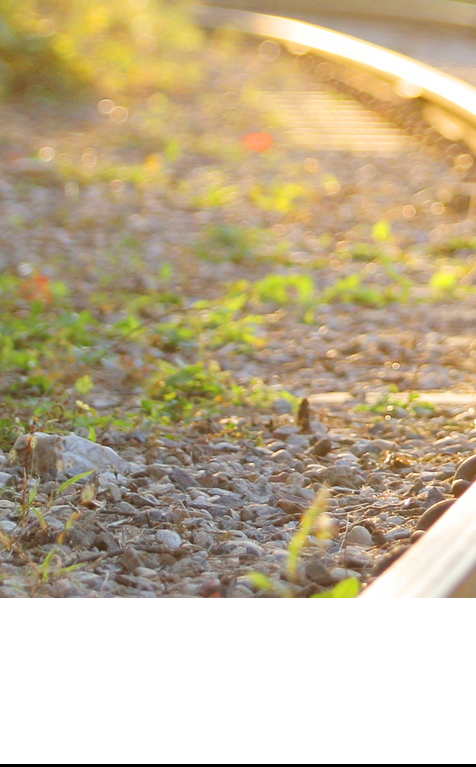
#include <cairo.h>
#include <math.h>
#include <stddef.h>


static void set_color(cairo_t *cr, unsigned color) {
    cairo_set_source_rgb(cr, (color >> 16) / 255.0, (color >> 8 & 255) / 255.0, (color & 255) / 255.0);
}

static void fill_rect(cairo_t *cr, double x, double y, double w, double h, unsigned color) {
    set_color(cr, color);
    cairo_rectangle(cr, x, y, w, h);
    cairo_fill(cr);
}

static void draw_image(cairo_t *cr, const char *path, double x, double y, double w, double h) {
    cairo_surface_t *image = cairo_image_surface_create_from_png(path);
    cairo_save(cr);
    cairo_set_source_surface(cr, image, x, y);
    cairo_rectangle(cr, x, y, w, h);
    cairo_fill(cr);
    cairo_restore(cr);
    cairo_surface_destroy(image);
}

int main(void) {
    cairo_surface_t *surface = cairo_image_surface_create(CAIRO_FORMAT_RGB24, 476, 767);
    cairo_t *cr = cairo_create(surface);
    cairo_font_options_t *options = cairo_font_options_create();
    cairo_font_options_set_hint_metrics(options, CAIRO_HINT_METRICS_OFF);
    cairo_font_options_set_hint_style(options, CAIRO_HINT_STYLE_NONE);
    cairo_set_font_options(cr, options);
    cairo_set_miter_limit(cr, 4);
    set_color(cr, 0xFFFFFF);
    cairo_paint(cr);
    draw_image(cr, "assets/img1.png", 0, 0, 476, 598);
    fill_rect(cr, 0, 764, 476, 3, 0x000000);
    cairo_surface_write_to_png(surface, "output.png");
    cairo_font_options_destroy(options);
    cairo_destroy(cr);
    cairo_surface_destroy(surface);
    return 0;
}
